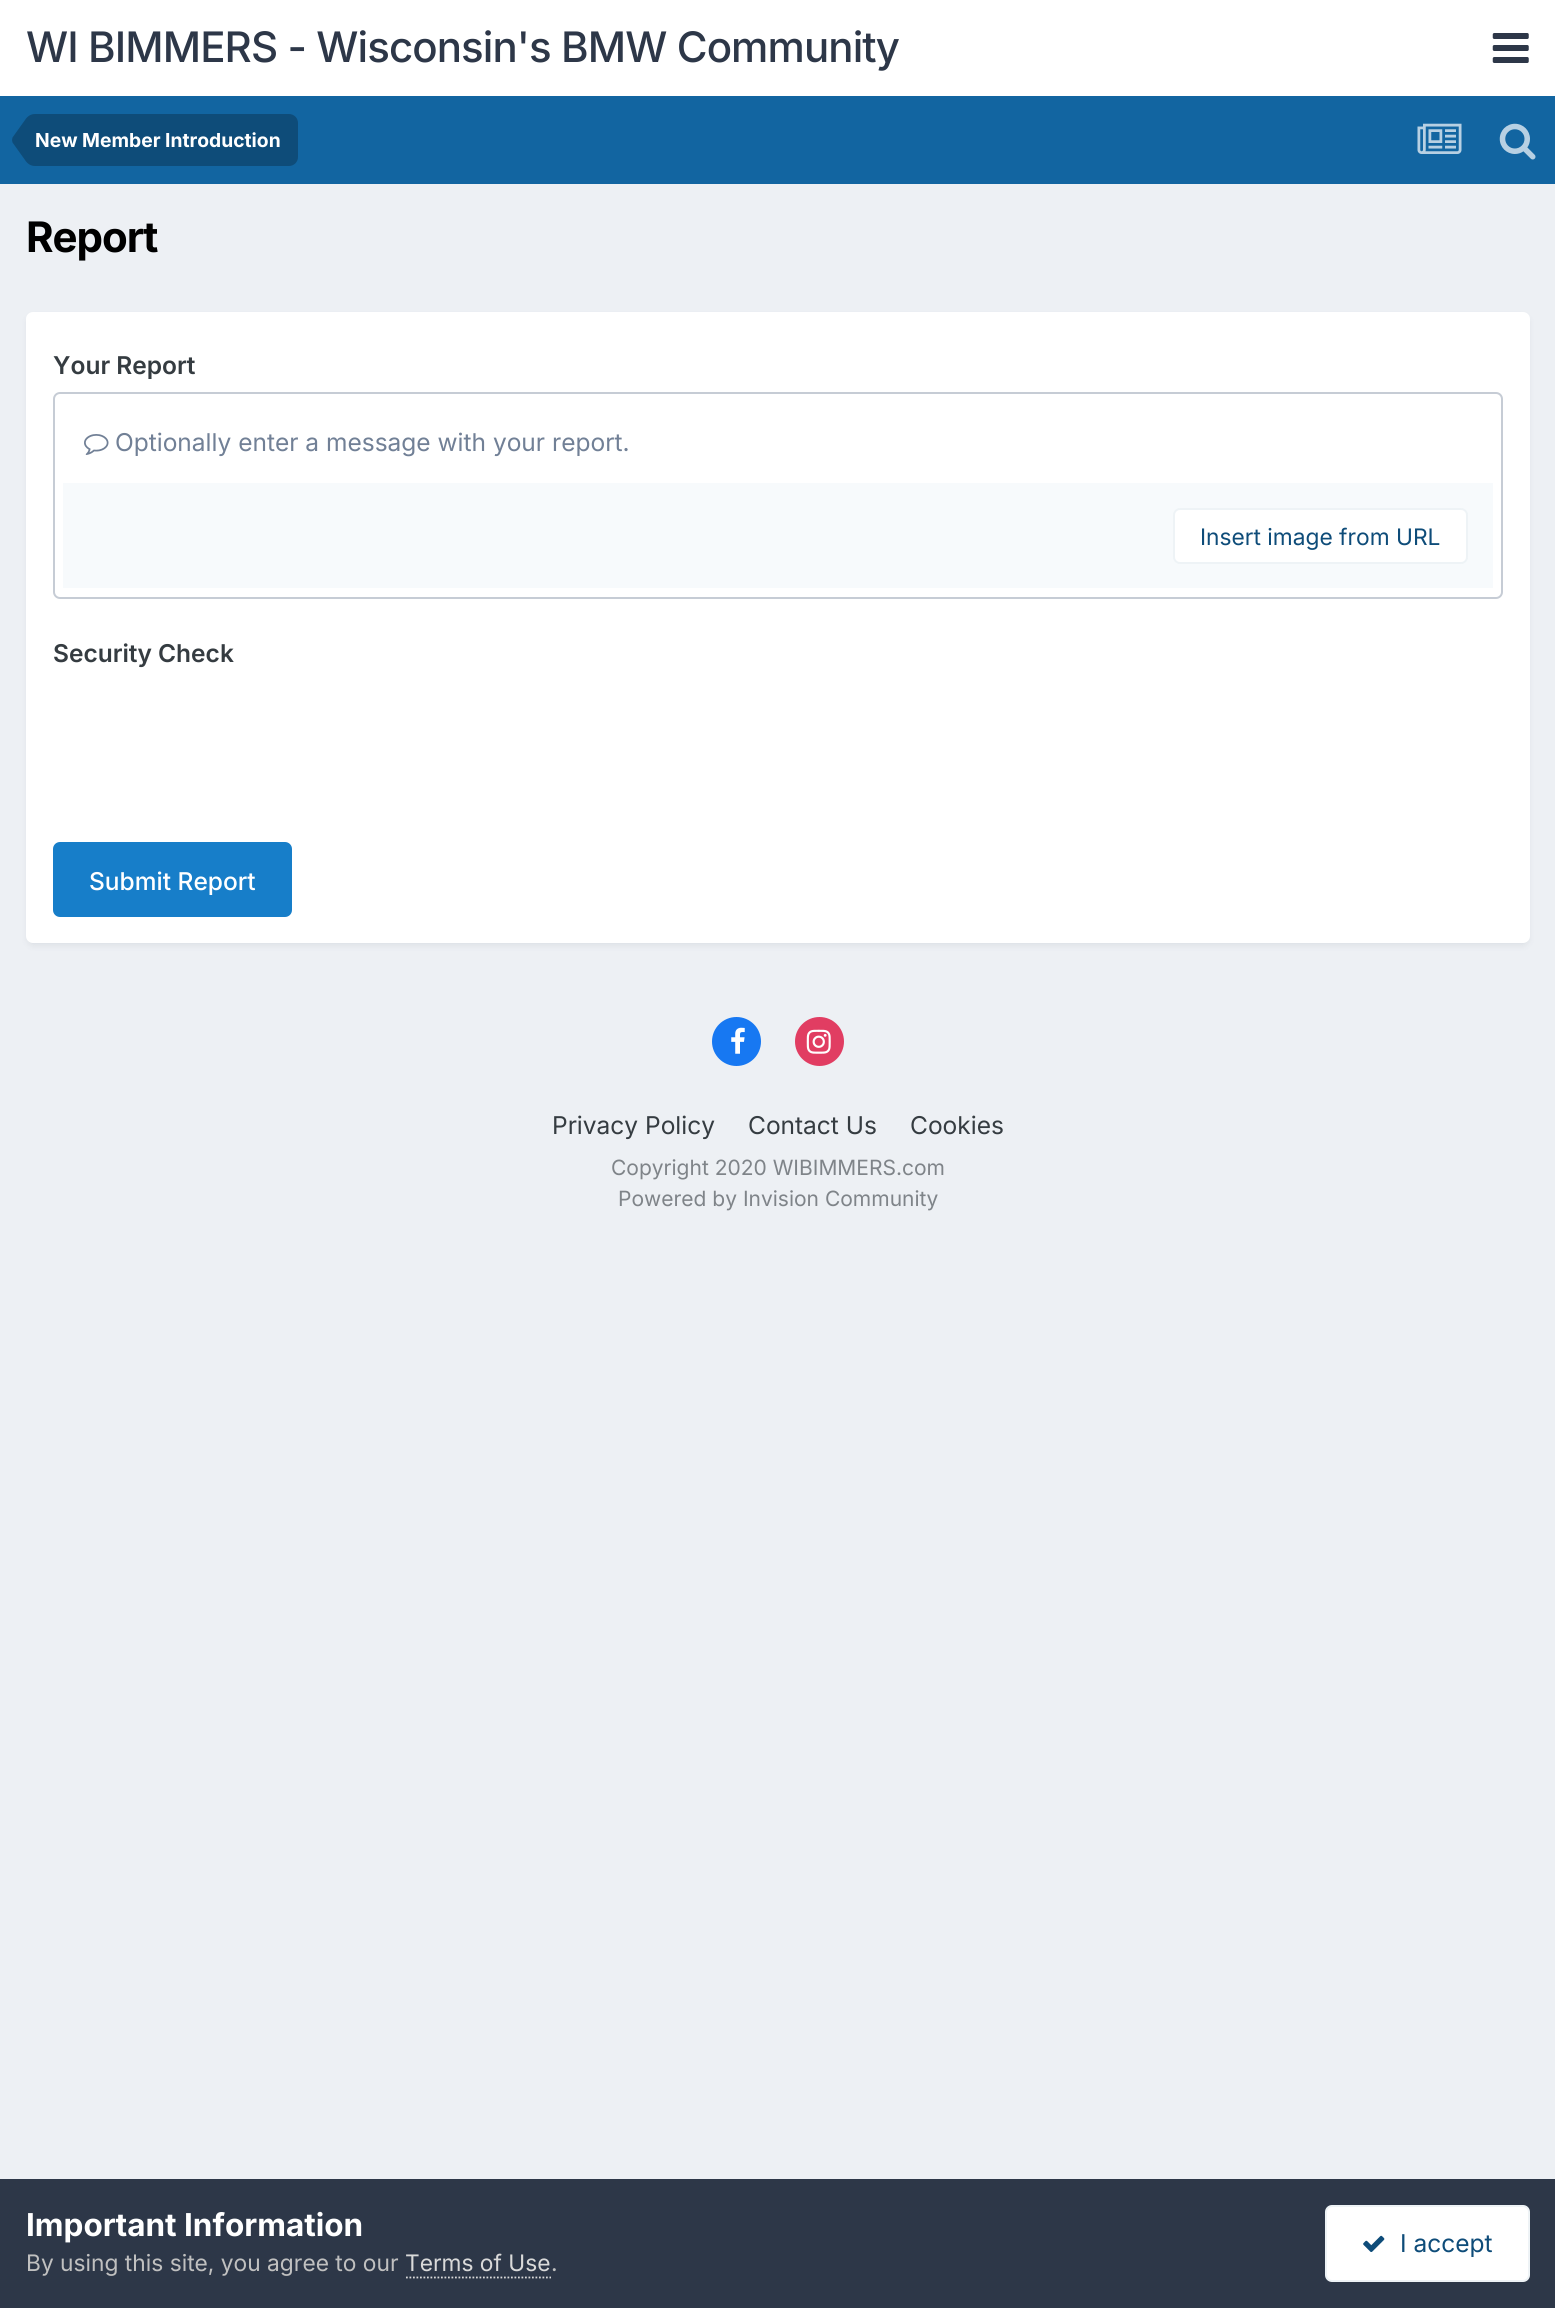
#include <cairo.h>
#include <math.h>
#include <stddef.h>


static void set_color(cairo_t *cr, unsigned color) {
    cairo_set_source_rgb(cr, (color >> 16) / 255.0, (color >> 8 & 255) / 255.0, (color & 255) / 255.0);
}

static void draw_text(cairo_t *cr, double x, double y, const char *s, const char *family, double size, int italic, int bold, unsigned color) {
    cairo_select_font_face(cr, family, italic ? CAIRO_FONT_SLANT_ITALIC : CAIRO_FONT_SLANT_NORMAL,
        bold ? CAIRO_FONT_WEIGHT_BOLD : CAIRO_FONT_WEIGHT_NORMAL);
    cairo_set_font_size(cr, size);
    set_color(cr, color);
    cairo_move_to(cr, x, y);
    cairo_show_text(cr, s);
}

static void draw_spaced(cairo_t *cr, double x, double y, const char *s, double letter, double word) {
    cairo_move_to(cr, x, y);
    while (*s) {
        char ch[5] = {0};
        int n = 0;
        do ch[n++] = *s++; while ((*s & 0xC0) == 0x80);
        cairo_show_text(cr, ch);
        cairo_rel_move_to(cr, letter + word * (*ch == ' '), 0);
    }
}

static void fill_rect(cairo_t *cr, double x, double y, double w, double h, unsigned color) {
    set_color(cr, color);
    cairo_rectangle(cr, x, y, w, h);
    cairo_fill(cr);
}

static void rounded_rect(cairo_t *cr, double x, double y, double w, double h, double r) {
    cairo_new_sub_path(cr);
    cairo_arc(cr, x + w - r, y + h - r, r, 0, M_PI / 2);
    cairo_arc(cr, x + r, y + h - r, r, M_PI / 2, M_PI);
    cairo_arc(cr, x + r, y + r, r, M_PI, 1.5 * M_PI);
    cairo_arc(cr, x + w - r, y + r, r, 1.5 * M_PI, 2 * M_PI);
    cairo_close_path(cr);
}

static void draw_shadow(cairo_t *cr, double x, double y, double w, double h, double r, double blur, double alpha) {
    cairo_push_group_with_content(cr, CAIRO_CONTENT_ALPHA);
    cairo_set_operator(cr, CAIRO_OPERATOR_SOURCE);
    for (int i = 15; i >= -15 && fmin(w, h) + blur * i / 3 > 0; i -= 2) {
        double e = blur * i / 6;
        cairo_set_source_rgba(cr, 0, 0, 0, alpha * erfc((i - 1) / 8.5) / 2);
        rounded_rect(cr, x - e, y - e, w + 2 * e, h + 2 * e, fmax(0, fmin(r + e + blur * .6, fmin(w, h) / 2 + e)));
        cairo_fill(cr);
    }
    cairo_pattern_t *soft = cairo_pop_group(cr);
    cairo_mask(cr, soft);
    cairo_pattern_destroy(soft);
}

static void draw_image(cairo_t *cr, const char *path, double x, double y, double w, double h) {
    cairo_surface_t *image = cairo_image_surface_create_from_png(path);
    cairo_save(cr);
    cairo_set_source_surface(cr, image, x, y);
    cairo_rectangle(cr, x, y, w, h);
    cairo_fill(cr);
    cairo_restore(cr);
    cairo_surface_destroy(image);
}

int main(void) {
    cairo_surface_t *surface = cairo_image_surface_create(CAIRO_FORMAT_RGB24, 1555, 2308);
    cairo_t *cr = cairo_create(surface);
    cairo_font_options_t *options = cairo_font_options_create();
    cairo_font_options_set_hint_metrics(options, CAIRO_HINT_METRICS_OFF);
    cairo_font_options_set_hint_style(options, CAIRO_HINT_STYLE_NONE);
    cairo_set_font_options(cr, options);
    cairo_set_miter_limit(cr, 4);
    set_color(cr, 0xEDF0F4);
    cairo_paint(cr);
    fill_rect(cr, 0, 0, 1555, 96, 0xFFFFFF);
    cairo_select_font_face(cr, "Inter Medium", CAIRO_FONT_SLANT_NORMAL, CAIRO_FONT_WEIGHT_NORMAL);
    cairo_set_font_size(cr, 42);
    set_color(cr, 0x2D3748);
    draw_spaced(cr, 26, 62, "WI BIMMERS - Wisconsin's BMW Community", -0.9, 0);
    draw_image(cr, "assets/img1.png", 1492, 33, 37, 30);
    fill_rect(cr, 0, 96, 1555, 88, 0x1265A1);
    set_color(cr, 0x0E4C79);
    cairo_new_path(cr);
    cairo_move_to(cr, 35, 114);
    cairo_line_to(cr, 289, 114);
    cairo_curve_to(cr, 294, 114, 298, 118, 298, 123);
    cairo_line_to(cr, 298, 157);
    cairo_curve_to(cr, 298, 162, 294, 166, 289, 166);
    cairo_line_to(cr, 35, 166);
    cairo_close_path(cr);
    cairo_fill(cr);
    cairo_new_path(cr);
    cairo_move_to(cr, 35, 140);
    cairo_line_to(cr, 35, 166);
    cairo_curve_to(cr, 31, 166, 27.5, 164, 25, 160);
    cairo_line_to(cr, 12.5, 142.5);
    cairo_line_to(cr, 12, 140);
    cairo_close_path(cr);
    cairo_move_to(cr, 35, 140);
    cairo_line_to(cr, 12, 140);
    cairo_line_to(cr, 12.5, 137.5);
    cairo_line_to(cr, 25, 120);
    cairo_curve_to(cr, 27.5, 116, 31, 114, 35, 114);
    cairo_close_path(cr);
    cairo_fill(cr);
    draw_text(cr, 35, 147, "New Member Introduction", "Inter", 19.25, 0, 1, 0xFFFFFF);
    draw_image(cr, "assets/img2.png", 1417, 123, 45, 31);
    draw_image(cr, "assets/img3.png", 1499, 123, 37, 37);
    cairo_set_font_size(cr, 42);
    set_color(cr, 0x000000);
    draw_spaced(cr, 26, 252, "Report", -1, 0);
    set_color(cr, 0x2D3748);
    draw_shadow(cr, 28, 317, 1500, 628, 5, 3.5, 0.1);
    set_color(cr, 0xFFFFFF);
    rounded_rect(cr, 26, 312, 1504, 631, 7);
    cairo_fill(cr);
    draw_text(cr, 53, 374, "Your Report", "Inter SemiBold", 24.5, 0, 0, 0x353C41);
    rounded_rect(cr, 54, 393, 1448, 205, 6);
    set_color(cr, 0xC6CCD5);
    cairo_stroke(cr);
    draw_image(cr, "assets/img4.png", 84, 434, 25, 21);
    draw_text(cr, 115, 451, "Optionally enter a message with your report.", "Inter", 24.5, 0, 0, 0x718096);
    fill_rect(cr, 63, 483, 1430, 105, 0xF7FAFC);
    set_color(cr, 0xFFFFFF);
    rounded_rect(cr, 1173, 508, 295, 56, 7);
    cairo_fill(cr);
    rounded_rect(cr, 1174, 509, 293, 54, 6);
    cairo_set_source_rgba(cr, 0.055, 0.298, 0.475, 0.07);
    cairo_stroke(cr);
    draw_text(cr, 1200, 545, "Insert image from URL", "Inter", 22.75, 0, 0, 0x0E4C79);
    draw_text(cr, 53, 662, "Security Check", "Inter SemiBold", 24.5, 0, 0, 0x353C41);
    set_color(cr, 0x177EC9);
    rounded_rect(cr, 53, 842, 239, 75, 7);
    cairo_fill(cr);
    draw_text(cr, 89, 890, "Submit Report", "Inter Medium", 24.5, 0, 0, 0xFFFFFF);
    set_color(cr, 0x1778F2);
    cairo_new_path(cr);
    cairo_arc(cr, 736.5, 1041.5, 24.5, 0, 2 * M_PI);
    cairo_fill(cr);
    draw_image(cr, "assets/img5.png", 731, 1027, 14, 27);
    set_color(cr, 0xE13D62);
    cairo_arc(cr, 819.5, 1041.5, 24.5, 0, 2 * M_PI);
    cairo_fill(cr);
    draw_image(cr, "assets/img6.png", 806, 1029, 25, 25);
    draw_text(cr, 552, 1134, "Privacy Policy", "Inter", 24.5, 0, 0, 0x353C41);
    draw_text(cr, 748, 1134, "Contact Us", "Inter", 24.5, 0, 0, 0x353C41);
    draw_text(cr, 910, 1134, "Cookies", "Inter", 24.5, 0, 0, 0x353C41);
    draw_text(cr, 611, 1175, "Copyright 2020 WIBIMMERS.com", "Inter", 21, 0, 0, 0x7F8489);
    draw_text(cr, 618, 1206, "Powered by Invision Community", "Inter", 21, 0, 0, 0x7F8489);
    fill_rect(cr, 0, 2179, 1555, 129, 0x2D3748);
    draw_text(cr, 26, 2236, "Important Information", "Inter", 31.5, 0, 1, 0xFFFFFF);
    draw_text(cr, 26, 2271, "By using this site, you agree to our", "Inter", 22.75, 0, 0, 0xC0C0C0);
    draw_text(cr, 405, 2271, "Terms of Use", "Inter", 22.75, 0, 0, 0xDADADA);
    cairo_new_path(cr);
    cairo_move_to(cr, 406, 2277.5);
    cairo_line_to(cr, 551, 2277.5);
    cairo_set_line_width(cr, 1.8);
    cairo_set_dash(cr, (double[]){1.75, 1.75}, 2, 0);
    cairo_stroke(cr);
    draw_text(cr, 551, 2271, ".", "Inter", 22.75, 0, 0, 0xC0C0C0);
    set_color(cr, 0xFFFFFF);
    rounded_rect(cr, 1325, 2205, 205, 77, 7);
    cairo_fill(cr);
    rounded_rect(cr, 1326, 2206, 203, 75, 6);
    cairo_set_source_rgba(cr, 0.055, 0.298, 0.475, 0.07);
    cairo_set_line_width(cr, 2);
    cairo_set_dash(cr, NULL, 0, 0);
    cairo_stroke(cr);
    draw_image(cr, "assets/img7.png", 1363, 2235, 22, 17);
    draw_text(cr, 1400, 2252, "I accept", "Inter", 24.5, 0, 0, 0x0E4C79);
    cairo_surface_write_to_png(surface, "output.png");
    cairo_font_options_destroy(options);
    cairo_destroy(cr);
    cairo_surface_destroy(surface);
    return 0;
}
